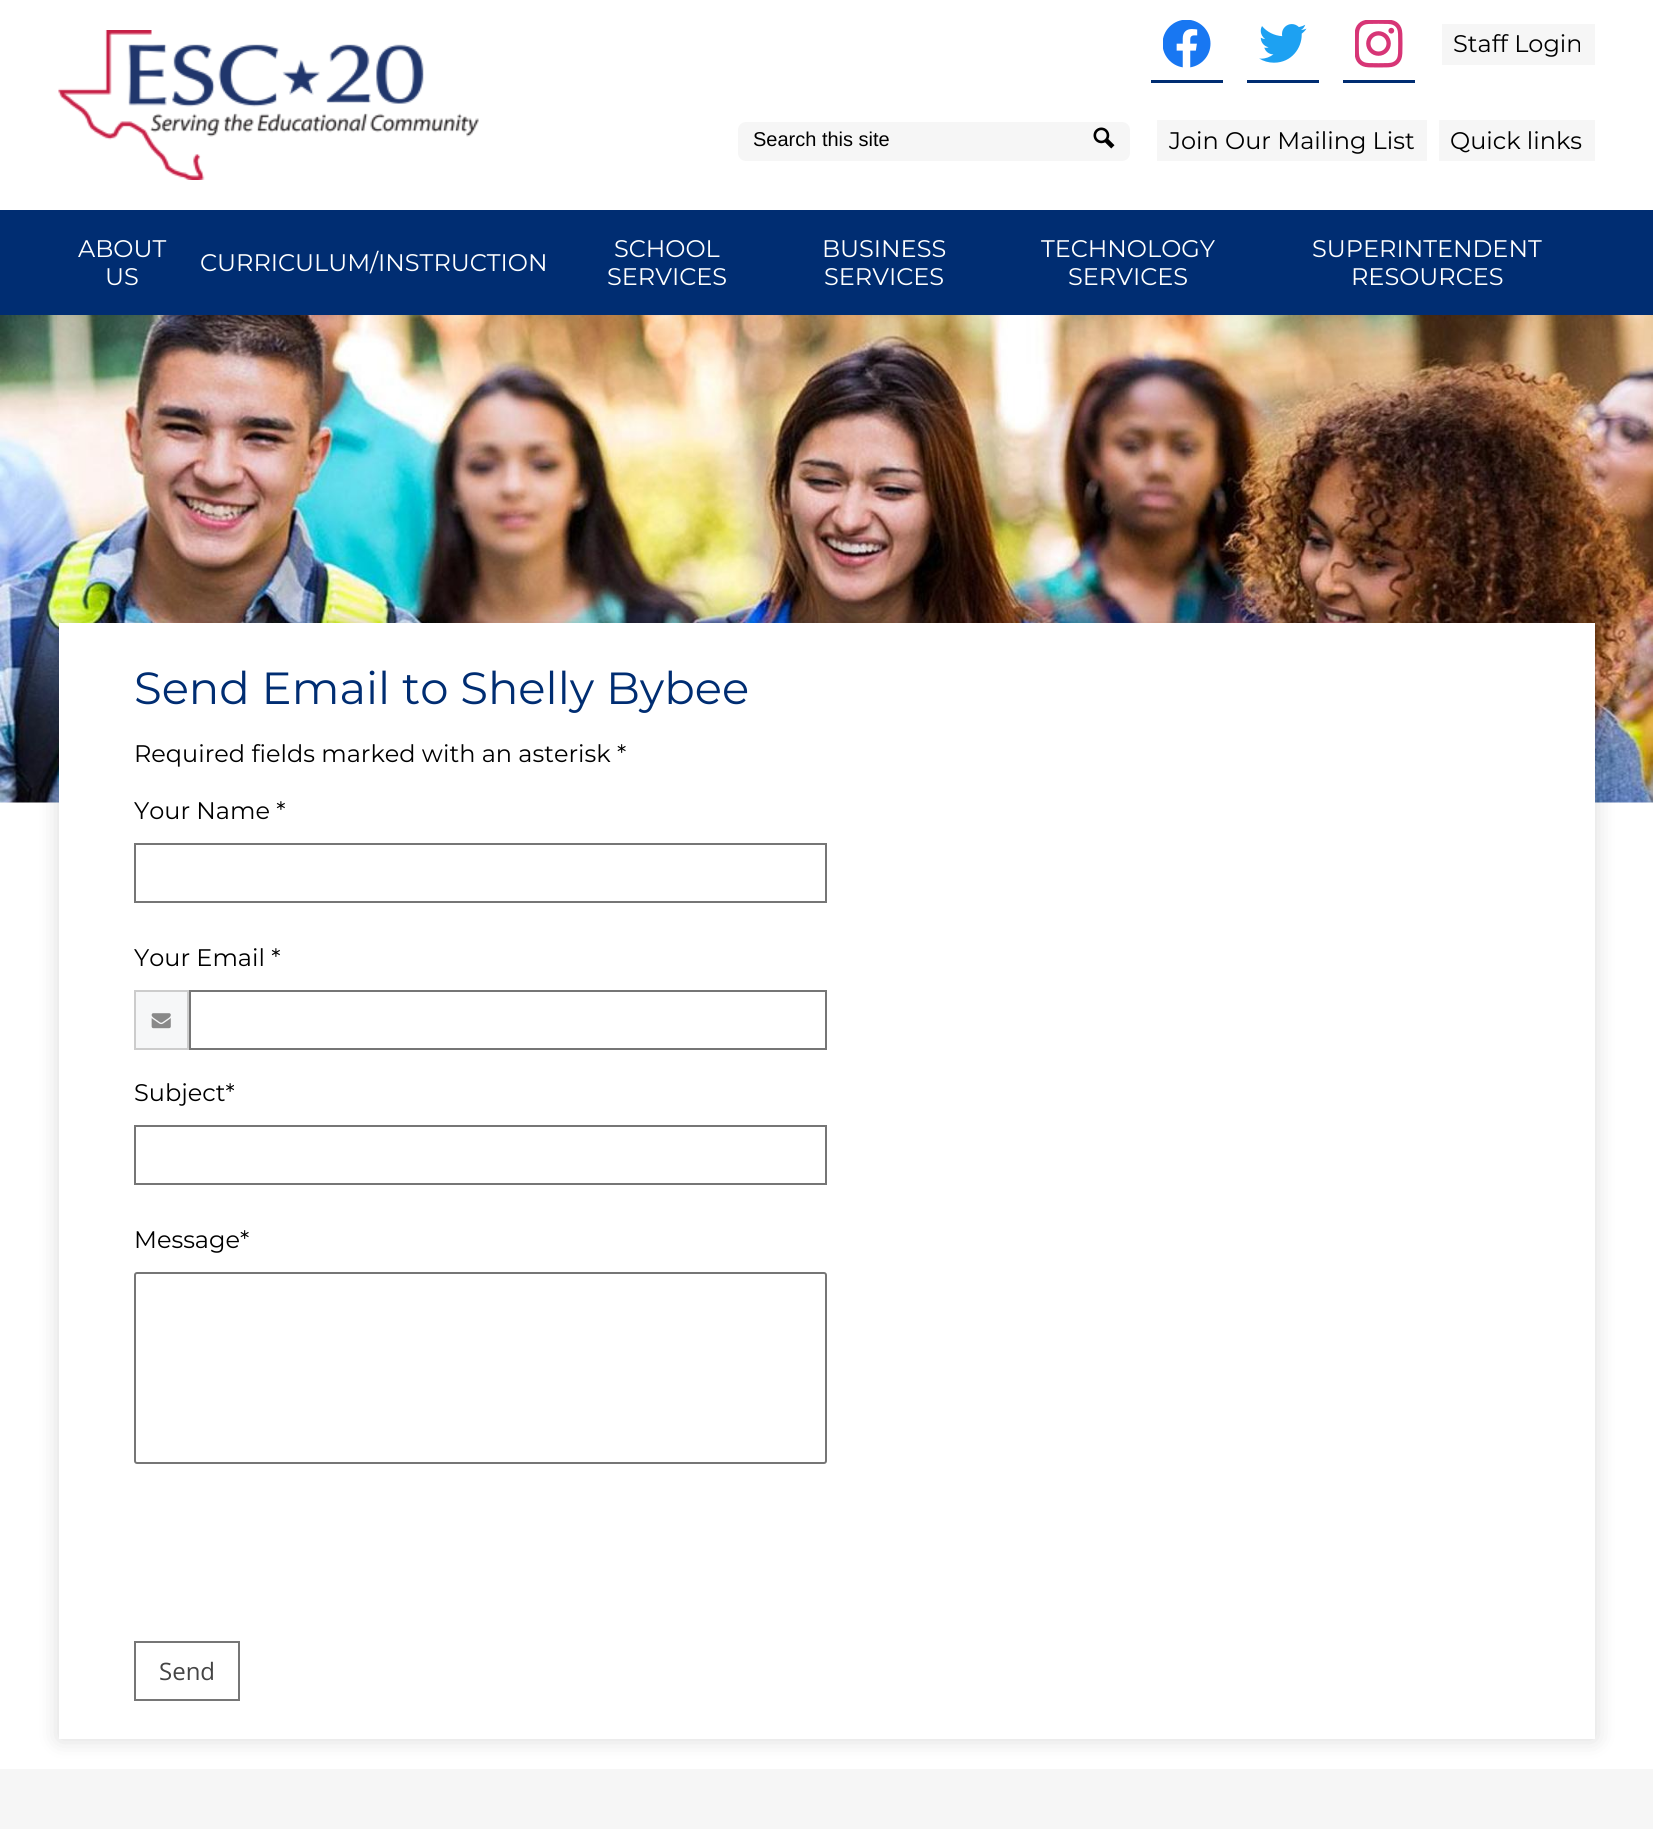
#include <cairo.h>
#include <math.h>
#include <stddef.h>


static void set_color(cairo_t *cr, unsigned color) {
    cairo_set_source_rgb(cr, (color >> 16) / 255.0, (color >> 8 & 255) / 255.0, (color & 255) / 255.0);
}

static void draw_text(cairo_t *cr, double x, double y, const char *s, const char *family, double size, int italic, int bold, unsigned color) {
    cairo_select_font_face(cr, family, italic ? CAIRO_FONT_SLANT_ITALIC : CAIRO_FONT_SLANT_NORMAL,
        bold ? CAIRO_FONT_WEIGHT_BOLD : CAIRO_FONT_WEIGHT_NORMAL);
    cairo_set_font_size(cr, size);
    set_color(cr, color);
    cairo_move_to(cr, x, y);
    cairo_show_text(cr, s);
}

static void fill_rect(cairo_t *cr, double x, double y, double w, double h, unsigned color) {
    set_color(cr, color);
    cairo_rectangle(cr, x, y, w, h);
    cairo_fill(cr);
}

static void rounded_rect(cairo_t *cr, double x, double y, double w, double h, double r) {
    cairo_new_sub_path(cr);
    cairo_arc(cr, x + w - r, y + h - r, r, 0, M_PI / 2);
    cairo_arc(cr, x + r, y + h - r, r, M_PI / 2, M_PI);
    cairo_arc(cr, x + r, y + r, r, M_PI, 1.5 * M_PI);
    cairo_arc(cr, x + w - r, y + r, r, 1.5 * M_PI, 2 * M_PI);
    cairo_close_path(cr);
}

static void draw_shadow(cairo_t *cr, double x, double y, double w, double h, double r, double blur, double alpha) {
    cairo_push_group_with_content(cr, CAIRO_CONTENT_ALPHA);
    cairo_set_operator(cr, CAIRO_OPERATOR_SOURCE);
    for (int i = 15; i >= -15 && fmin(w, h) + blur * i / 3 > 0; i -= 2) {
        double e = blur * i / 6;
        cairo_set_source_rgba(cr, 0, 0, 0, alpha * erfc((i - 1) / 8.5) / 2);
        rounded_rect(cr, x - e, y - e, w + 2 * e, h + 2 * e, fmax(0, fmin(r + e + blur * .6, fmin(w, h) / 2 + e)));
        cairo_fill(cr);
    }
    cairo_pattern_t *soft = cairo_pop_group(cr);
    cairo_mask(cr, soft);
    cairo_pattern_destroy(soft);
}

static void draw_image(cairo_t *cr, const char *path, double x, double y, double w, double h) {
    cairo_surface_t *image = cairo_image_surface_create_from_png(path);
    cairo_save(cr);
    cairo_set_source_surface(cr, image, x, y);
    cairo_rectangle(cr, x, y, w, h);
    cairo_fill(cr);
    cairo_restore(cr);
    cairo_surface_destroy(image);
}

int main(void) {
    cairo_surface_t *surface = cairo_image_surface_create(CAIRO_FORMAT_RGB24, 1653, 1829);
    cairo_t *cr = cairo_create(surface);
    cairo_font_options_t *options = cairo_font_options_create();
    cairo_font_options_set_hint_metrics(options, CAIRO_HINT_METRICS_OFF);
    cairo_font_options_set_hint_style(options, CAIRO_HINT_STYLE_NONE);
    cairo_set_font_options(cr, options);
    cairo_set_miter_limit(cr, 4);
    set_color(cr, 0xFFFFFF);
    cairo_paint(cr);
    draw_image(cr, "assets/img1.png", 58, 30, 421, 150);
    draw_image(cr, "assets/img2.png", 1163, 20, 48, 48);
    fill_rect(cr, 1151, 80, 72, 3, 0x002D72);
    draw_image(cr, "assets/img3.png", 1259, 24, 48, 39);
    fill_rect(cr, 1247, 80, 72, 3, 0x002D72);
    draw_image(cr, "assets/img4.png", 1355, 20, 48, 48);
    fill_rect(cr, 1343, 80, 72, 3, 0x002D72);
    fill_rect(cr, 1442, 24, 153, 41, 0xF6F6F6);
    draw_text(cr, 1453, 52, "Staff Login", "Montserrat", 24, 0, 0, 0x000000);
    set_color(cr, 0xF6F6F6);
    rounded_rect(cr, 738, 122, 392, 39, 8);
    cairo_fill(cr);
    draw_text(cr, 753, 146, "Search this site", "Liberation Sans", 20, 0, 0, 0x000000);
    draw_image(cr, "assets/img5.png", 1093, 127, 22, 22);
    fill_rect(cr, 1157, 120, 270, 41, 0xF6F6F6);
    draw_text(cr, 1169, 149, "Join Our Mailing List", "Montserrat", 24, 0, 0, 0x000000);
    fill_rect(cr, 1439, 120, 156, 41, 0xF6F6F6);
    draw_text(cr, 1450, 149, "Quick links", "Montserrat", 24, 0, 0, 0x000000);
    fill_rect(cr, 0, 210, 1653, 105, 0x002D72);
    draw_text(cr, 78, 257, "ABOUT", "Montserrat", 24, 0, 0, 0xFFFFFF);
    draw_text(cr, 105, 285, "US", "Montserrat", 24, 0, 0, 0xFFFFFF);
    draw_text(cr, 200, 271, "CURRICULUM/INSTRUCTION", "Montserrat", 24, 0, 0, 0xFFFFFF);
    draw_text(cr, 614, 257, "SCHOOL", "Montserrat", 24, 0, 0, 0xFFFFFF);
    draw_text(cr, 607, 285, "SERVICES", "Montserrat", 24, 0, 0, 0xFFFFFF);
    draw_text(cr, 822, 257, "BUSINESS", "Montserrat", 24, 0, 0, 0xFFFFFF);
    draw_text(cr, 824, 285, "SERVICES", "Montserrat", 24, 0, 0, 0xFFFFFF);
    draw_text(cr, 1041, 257, "TECHNOLOGY", "Montserrat", 24, 0, 0, 0xFFFFFF);
    draw_text(cr, 1068, 285, "SERVICES", "Montserrat", 24, 0, 0, 0xFFFFFF);
    draw_text(cr, 1312, 257, "SUPERINTENDENT", "Montserrat", 24, 0, 0, 0xFFFFFF);
    draw_text(cr, 1351, 285, "RESOURCES", "Montserrat", 24, 0, 0, 0xFFFFFF);
    draw_image(cr, "assets/img6.png", 0, 315, 1653, 488);
    set_color(cr, 0x000000);
    draw_shadow(cr, 59, 623, 1536, 1116, 0, 11, 0.15);
    fill_rect(cr, 59, 623, 1536, 1116, 0xFFFFFF);
    draw_text(cr, 134, 704, "Send Email to Shelly Bybee", "Montserrat", 45, 0, 0, 0x002D72);
    draw_text(cr, 134, 762, "Required fields marked with an asterisk *", "Montserrat", 24, 0, 0, 0x000000);
    draw_text(cr, 134, 819, "Your Name *", "Montserrat", 24, 0, 0, 0x000000);
    cairo_rectangle(cr, 135, 844, 691, 58);
    set_color(cr, 0x767676);
    cairo_stroke(cr);
    draw_text(cr, 134, 966, "Your Email *", "Montserrat", 24, 0, 0, 0x000000);
    set_color(cr, 0xF6F7F8);
    cairo_rectangle(cr, 135, 991, 53, 58);
    cairo_fill_preserve(cr);
    set_color(cr, 0xCCCCCC);
    cairo_stroke(cr);
    draw_image(cr, "assets/img7.png", 151, 1013, 20, 16);
    cairo_rectangle(cr, 190, 991, 636, 58);
    set_color(cr, 0x767676);
    cairo_stroke(cr);
    draw_text(cr, 134, 1101, "Subject*", "Montserrat", 24, 0, 0, 0x000000);
    cairo_rectangle(cr, 135, 1126, 691, 58);
    set_color(cr, 0x767676);
    cairo_stroke(cr);
    draw_text(cr, 134, 1248, "Message*", "Montserrat", 24, 0, 0, 0x000000);
    rounded_rect(cr, 135, 1273, 691, 190, 2);
    set_color(cr, 0x767676);
    cairo_stroke(cr);
    cairo_rectangle(cr, 135, 1642, 104, 58);
    cairo_stroke(cr);
    draw_text(cr, 159, 1680, "Send", "Open Sans", 24, 0, 0, 0x444444);
    fill_rect(cr, 0, 1769, 1653, 60, 0xF6F6F6);
    cairo_surface_write_to_png(surface, "output.png");
    cairo_font_options_destroy(options);
    cairo_destroy(cr);
    cairo_surface_destroy(surface);
    return 0;
}
